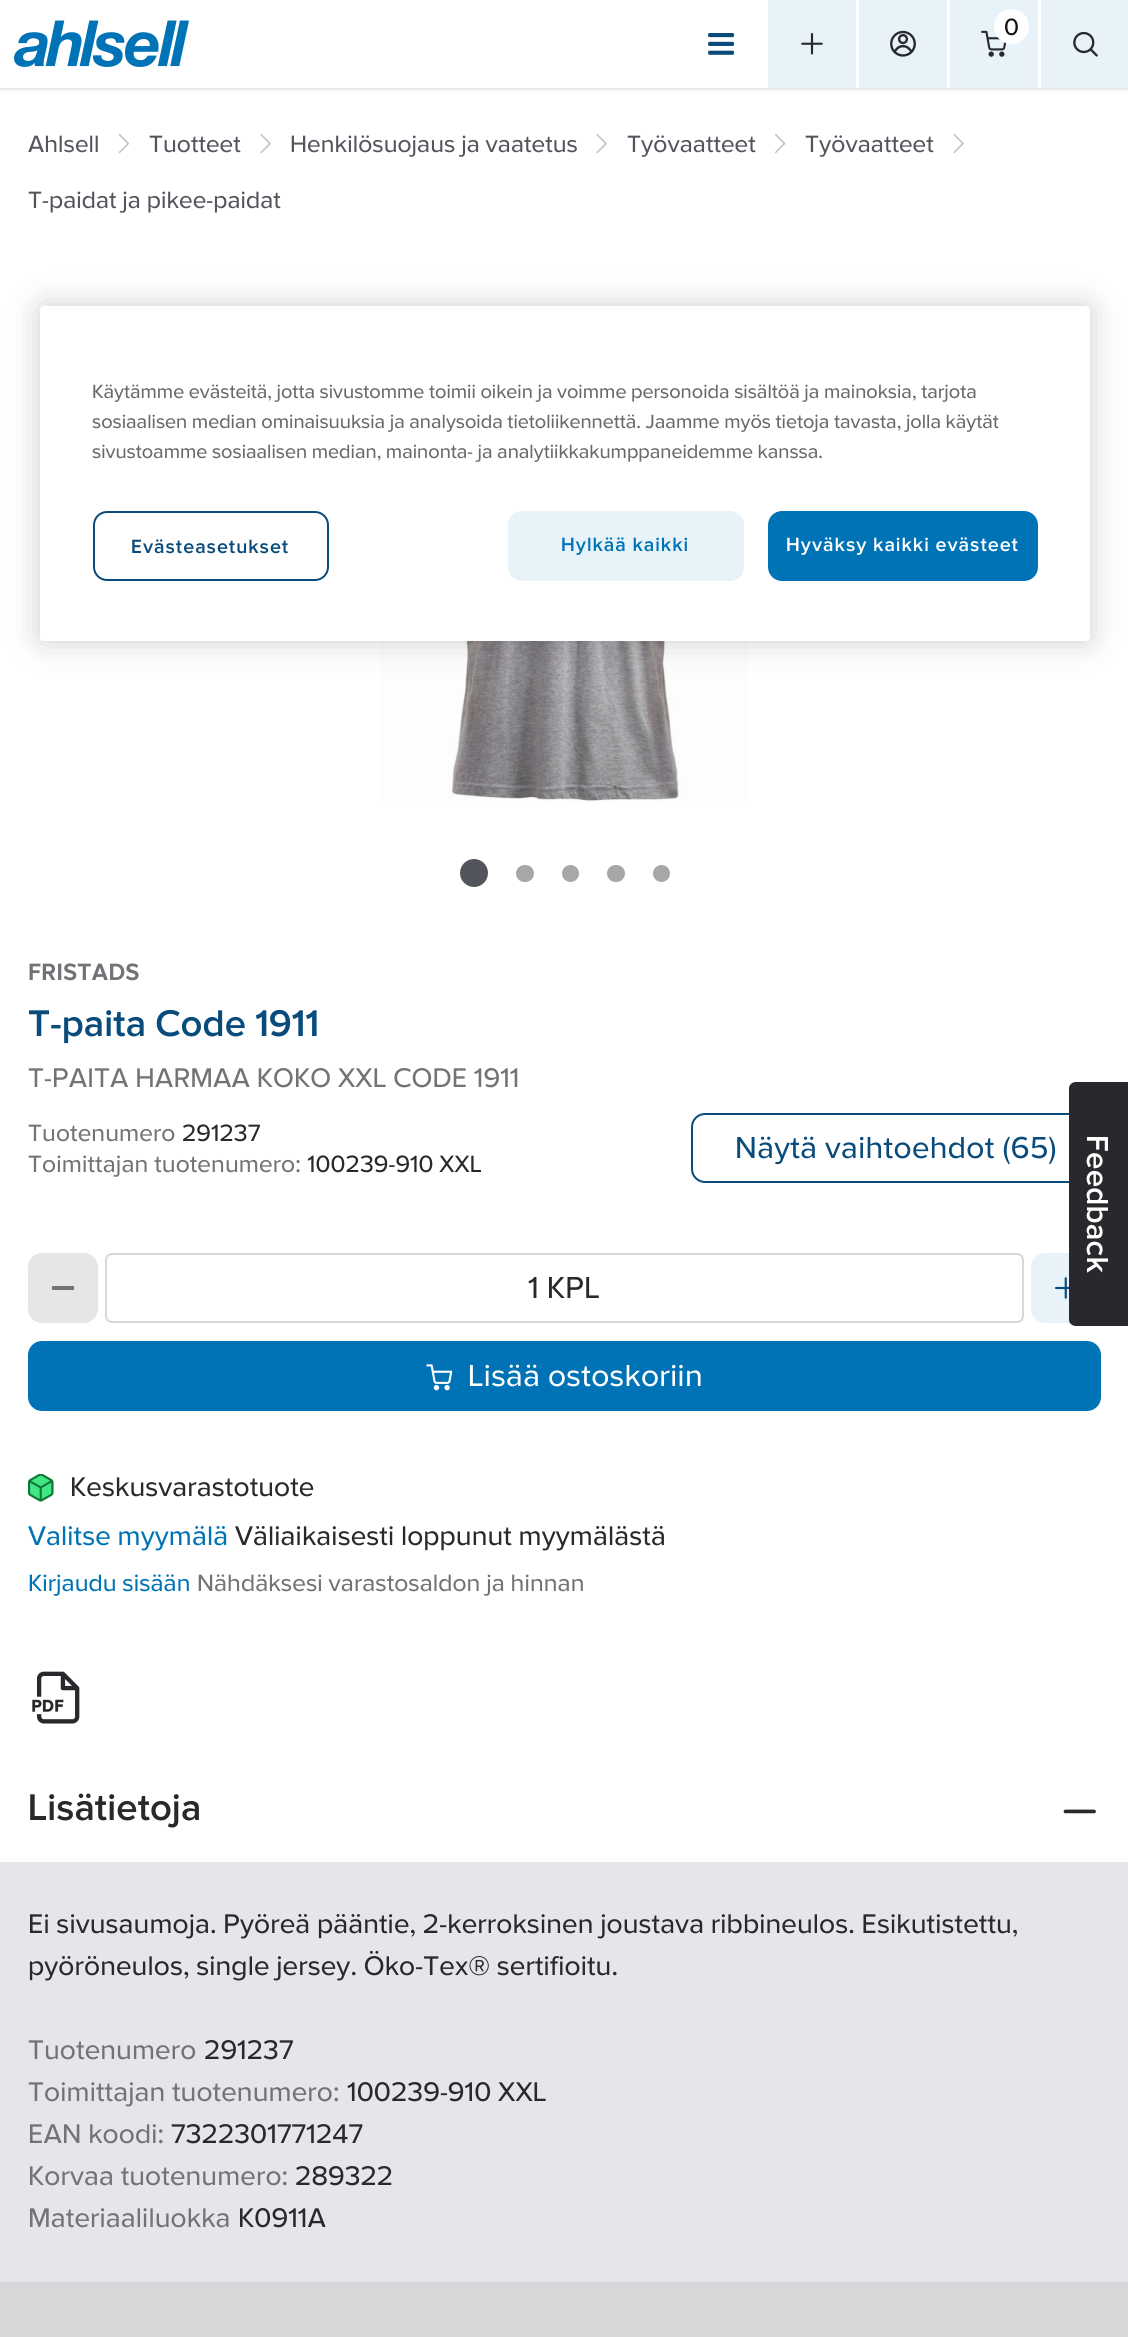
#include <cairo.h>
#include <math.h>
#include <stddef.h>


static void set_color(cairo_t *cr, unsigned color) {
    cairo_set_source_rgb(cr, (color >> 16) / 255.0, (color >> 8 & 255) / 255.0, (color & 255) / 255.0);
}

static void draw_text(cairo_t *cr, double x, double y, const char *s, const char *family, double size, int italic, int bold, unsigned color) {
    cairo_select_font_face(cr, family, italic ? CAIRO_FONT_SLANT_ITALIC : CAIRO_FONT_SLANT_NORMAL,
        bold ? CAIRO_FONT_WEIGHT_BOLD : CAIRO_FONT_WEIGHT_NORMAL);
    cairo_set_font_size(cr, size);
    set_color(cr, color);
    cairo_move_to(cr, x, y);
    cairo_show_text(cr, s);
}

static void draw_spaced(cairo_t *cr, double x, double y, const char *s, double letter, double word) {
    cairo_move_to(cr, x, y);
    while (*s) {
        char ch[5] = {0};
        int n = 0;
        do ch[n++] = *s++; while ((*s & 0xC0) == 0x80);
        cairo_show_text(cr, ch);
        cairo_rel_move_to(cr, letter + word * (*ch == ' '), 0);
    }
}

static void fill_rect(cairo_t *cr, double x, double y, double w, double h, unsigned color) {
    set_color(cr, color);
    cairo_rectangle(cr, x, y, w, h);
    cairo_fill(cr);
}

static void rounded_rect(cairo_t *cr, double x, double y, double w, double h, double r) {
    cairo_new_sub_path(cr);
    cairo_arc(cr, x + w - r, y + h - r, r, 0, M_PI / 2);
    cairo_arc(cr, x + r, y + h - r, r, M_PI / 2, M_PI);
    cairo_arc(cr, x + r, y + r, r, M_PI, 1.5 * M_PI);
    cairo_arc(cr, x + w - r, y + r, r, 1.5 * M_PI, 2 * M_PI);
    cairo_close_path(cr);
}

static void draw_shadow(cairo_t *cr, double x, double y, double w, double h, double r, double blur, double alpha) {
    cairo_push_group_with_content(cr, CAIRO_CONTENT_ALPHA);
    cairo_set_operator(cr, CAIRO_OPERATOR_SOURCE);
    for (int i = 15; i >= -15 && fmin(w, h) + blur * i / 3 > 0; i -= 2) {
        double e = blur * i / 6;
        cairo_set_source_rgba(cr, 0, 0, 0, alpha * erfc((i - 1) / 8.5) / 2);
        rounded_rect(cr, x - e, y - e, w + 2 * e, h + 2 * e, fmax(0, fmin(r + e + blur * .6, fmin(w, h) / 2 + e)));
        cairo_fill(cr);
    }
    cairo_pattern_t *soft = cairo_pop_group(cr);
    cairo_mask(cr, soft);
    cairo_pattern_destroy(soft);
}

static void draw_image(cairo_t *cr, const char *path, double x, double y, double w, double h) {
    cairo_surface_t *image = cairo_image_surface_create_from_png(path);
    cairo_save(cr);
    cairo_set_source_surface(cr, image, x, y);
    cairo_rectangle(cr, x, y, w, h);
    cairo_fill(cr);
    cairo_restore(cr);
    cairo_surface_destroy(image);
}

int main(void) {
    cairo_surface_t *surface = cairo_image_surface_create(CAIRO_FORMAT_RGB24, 1128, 2337);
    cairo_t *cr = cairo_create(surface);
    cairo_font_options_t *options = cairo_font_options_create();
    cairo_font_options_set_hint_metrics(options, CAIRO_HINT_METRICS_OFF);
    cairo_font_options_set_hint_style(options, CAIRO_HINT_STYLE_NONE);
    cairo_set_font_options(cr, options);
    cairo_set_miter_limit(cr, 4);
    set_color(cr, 0xFFFFFF);
    cairo_paint(cr);
    cairo_save(cr);
    cairo_set_fill_rule(cr, CAIRO_FILL_RULE_EVEN_ODD);
    cairo_new_path(cr);
    cairo_move_to(cr, 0, 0);
    cairo_line_to(cr, 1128, 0);
    cairo_line_to(cr, 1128, 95);
    cairo_line_to(cr, 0, 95);
    cairo_close_path(cr);
    cairo_move_to(cr, 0, 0);
    cairo_line_to(cr, 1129, 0);
    cairo_line_to(cr, 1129, 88);
    cairo_line_to(cr, 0, 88);
    cairo_close_path(cr);
    cairo_clip(cr);
    set_color(cr, 0x000000);
    draw_shadow(cr, 2, 4, 1125, 84, 0, 2, 0.1);
    cairo_restore(cr);
    cairo_save(cr);
    cairo_set_fill_rule(cr, CAIRO_FILL_RULE_EVEN_ODD);
    cairo_new_path(cr);
    cairo_move_to(cr, 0, 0);
    cairo_line_to(cr, 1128, 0);
    cairo_line_to(cr, 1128, 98);
    cairo_line_to(cr, 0, 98);
    cairo_close_path(cr);
    cairo_move_to(cr, 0, 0);
    cairo_line_to(cr, 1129, 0);
    cairo_line_to(cr, 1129, 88);
    cairo_line_to(cr, 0, 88);
    cairo_close_path(cr);
    cairo_clip(cr);
    set_color(cr, 0x000000);
    draw_shadow(cr, 0, 2, 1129, 87, 0, 2.5, 0.1);
    cairo_restore(cr);
    draw_image(cr, "assets/img1.png", 14, 20, 175, 47);
    fill_rect(cr, 768, 0, 88, 88, 0xE8F3F9);
    draw_image(cr, "assets/img2.png", 801, 33, 22, 22);
    fill_rect(cr, 859, 0, 88, 88, 0xE8F3F9);
    draw_image(cr, "assets/img3.png", 890, 30, 26, 27);
    fill_rect(cr, 950, 0, 88, 88, 0xE8F3F9);
    draw_image(cr, "assets/img4.png", 981, 30, 26, 27);
    set_color(cr, 0xFFFFFF);
    cairo_arc(cr, 1011.5, 26.5, 17.5, 0, 2 * M_PI);
    cairo_fill(cr);
    cairo_select_font_face(cr, "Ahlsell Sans", CAIRO_FONT_SLANT_NORMAL, CAIRO_FONT_WEIGHT_NORMAL);
    cairo_set_font_size(cr, 24.5);
    set_color(cr, 0x121214);
    draw_spaced(cr, 1004, 35, "0", 0.1, 0);
    fill_rect(cr, 1041, 0, 87, 88, 0xE8F3F9);
    draw_image(cr, "assets/img5.png", 1073, 31, 25, 26);
    draw_image(cr, "assets/img6.png", 708, 33, 27, 22);
    set_color(cr, 0x52555C);
    draw_spaced(cr, 28, 152, "Ahlsell", 0.1, 0);
    draw_image(cr, "assets/img7.png", 118, 133, 12, 21);
    draw_spaced(cr, 149, 152, "Tuotteet", 0.1, 0);
    draw_image(cr, "assets/img8.png", 260, 133, 11, 21);
    draw_spaced(cr, 290, 152, "Henkilösuojaus ja vaatetus", 0.1, 0);
    draw_image(cr, "assets/img8.png", 596, 133, 11, 21);
    draw_spaced(cr, 627, 152, "Työvaatteet", 0.1, 0);
    draw_image(cr, "assets/img9.png", 775, 133, 11, 21);
    draw_spaced(cr, 805, 152, "Työvaatteet", 0.1, 0);
    draw_image(cr, "assets/img8.png", 953, 133, 11, 21);
    draw_spaced(cr, 28, 208, "T-paidat ja pikee-paidat", 0.1, 0);
    draw_image(cr, "assets/img10.png", 380, 641, 369, 161);
    cairo_arc(cr, 474, 873, 14, 0, 2 * M_PI);
    cairo_fill(cr);
    set_color(cr, 0xA7A7A9);
    rounded_rect(cr, 516, 865, 18, 17, 8.5);
    cairo_fill(cr);
    cairo_arc(cr, 570.5, 873.5, 8.5, 0, 2 * M_PI);
    cairo_fill(cr);
    rounded_rect(cr, 607, 865, 18, 17, 8.5);
    cairo_fill(cr);
    cairo_arc(cr, 661.5, 873.5, 8.5, 0, 2 * M_PI);
    cairo_fill(cr);
    cairo_select_font_face(cr, "Ahlsell Sans", CAIRO_FONT_SLANT_NORMAL, CAIRO_FONT_WEIGHT_BOLD);
    set_color(cr, 0x727277);
    draw_spaced(cr, 28, 980, "FRISTADS", 0.15, 0);
    cairo_select_font_face(cr, "Ahlsell Sans SemiBold", CAIRO_FONT_SLANT_NORMAL, CAIRO_FONT_WEIGHT_NORMAL);
    cairo_set_font_size(cr, 38.5);
    set_color(cr, 0x094C7C);
    draw_spaced(cr, 28, 1036, "T-paita Code 1911", 0.15, 0);
    cairo_select_font_face(cr, "Ahlsell Sans", CAIRO_FONT_SLANT_NORMAL, CAIRO_FONT_WEIGHT_NORMAL);
    cairo_set_font_size(cr, 28);
    set_color(cr, 0x727277);
    draw_spaced(cr, 28, 1087, "T-PAITA HARMAA KOKO XXL CODE 1911", 0.15, 0);
    cairo_set_font_size(cr, 24.5);
    draw_spaced(cr, 28, 1141, "Tuotenumero", 0.15, 0);
    set_color(cr, 0x29292D);
    draw_spaced(cr, 182, 1141, "291237", 0.15, 0);
    set_color(cr, 0x727277);
    draw_spaced(cr, 28, 1172, "Toimittajan tuotenumero:", 0.15, 0);
    cairo_save(cr);
    cairo_rectangle(cr, 308, 1152, 173, 24);
    cairo_clip(cr);
    set_color(cr, 0x29292D);
    draw_spaced(cr, 307, 1172, "100239-910 XXL", 0.15, 0);
    cairo_restore(cr);
    rounded_rect(cr, 692, 1114, 408, 68, 13);
    set_color(cr, 0x094C7C);
    cairo_stroke(cr);
    cairo_set_font_size(cr, 31.5);
    draw_spaced(cr, 735, 1158, "Näytä vaihtoehdot (65)", 0.4, 0);
    set_color(cr, 0xE6E6E4);
    rounded_rect(cr, 28, 1253, 70, 70, 14);
    cairo_fill(cr);
    fill_rect(cr, 52, 1286, 22, 4, 0x727277);
    rounded_rect(cr, 106, 1254, 917, 68, 6);
    set_color(cr, 0xD7D7DA);
    cairo_stroke(cr);
    set_color(cr, 0x29292D);
    draw_spaced(cr, 528, 1298, "1 KPL", 0.4, 0);
    set_color(cr, 0xE8F3F9);
    rounded_rect(cr, 1031, 1253, 70, 70, 14);
    cairo_fill(cr);
    draw_image(cr, "assets/img11.png", 1055, 1277, 14, 22);
    set_color(cr, 0x0073B6);
    rounded_rect(cr, 28, 1341, 1073, 70, 14);
    cairo_fill(cr);
    draw_image(cr, "assets/img12.png", 426, 1364, 27, 27);
    set_color(cr, 0xFFFFFF);
    draw_spaced(cr, 468, 1386, "Lisää ostoskoriin", 0.4, 0);
    draw_image(cr, "assets/img13.png", 28, 1474, 26, 28);
    cairo_set_font_size(cr, 28);
    set_color(cr, 0x29292D);
    draw_spaced(cr, 70, 1496, "Keskusvarastotuote", 0.15, 0);
    set_color(cr, 0x0073B6);
    draw_spaced(cr, 28, 1545, "Valitse myymälä", 0.15, 0);
    set_color(cr, 0x29292D);
    draw_spaced(cr, 235, 1545, "Väliaikaisesti loppunut myymälästä", 0.15, 0);
    cairo_set_font_size(cr, 24.5);
    set_color(cr, 0x0073B6);
    draw_spaced(cr, 28, 1591, "Kirjaudu sisään", 0.1, 0);
    set_color(cr, 0x727277);
    draw_spaced(cr, 197, 1591, "Nähdäksesi varastosaldon ja hinnan", 0.1, 0);
    draw_image(cr, "assets/img14.png", 32, 1671, 48, 53);
    set_color(cr, 0x29292D);
    cairo_new_path(cr);
    cairo_move_to(cr, 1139, 1082);
    cairo_line_to(cr, 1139, 1326);
    cairo_line_to(cr, 1076, 1326);
    cairo_curve_to(cr, 1072, 1326, 1069, 1323, 1069, 1320);
    cairo_line_to(cr, 1069, 1088);
    cairo_curve_to(cr, 1069, 1085, 1072, 1082, 1076, 1082);
    cairo_close_path(cr);
    cairo_fill(cr);
    cairo_select_font_face(cr, "Ahlsell Sans SemiBold", CAIRO_FONT_SLANT_NORMAL, CAIRO_FONT_WEIGHT_NORMAL);
    cairo_set_font_size(cr, 31.5);
    set_color(cr, 0xFFFFFF);
    cairo_save(cr);
    cairo_translate(cr, 1087, 1135);
    cairo_rotate(cr, 90 * M_PI / 180);
    draw_spaced(cr, 0, 0, "Feedback", 0.25, 0);
    cairo_restore(cr);
    cairo_set_font_size(cr, 38.5);
    set_color(cr, 0x29292D);
    draw_spaced(cr, 28, 1820, "Lisätietoja", 0.15, 0);
    draw_image(cr, "assets/img15.png", 1063, 1809, 33, 5);
    fill_rect(cr, 0, 1862, 1128, 420, 0xE6E6EA);
    cairo_select_font_face(cr, "Ahlsell Sans", CAIRO_FONT_SLANT_NORMAL, CAIRO_FONT_WEIGHT_NORMAL);
    cairo_set_font_size(cr, 28);
    set_color(cr, 0x29292D);
    draw_spaced(cr, 28, 1933, "Ei sivusaumoja. Pyöreä pääntie, 2-kerroksinen joustava ribbineulos. Esikutistettu,", 0.15, 0);
    draw_spaced(cr, 28, 1975, "pyöröneulos, single jersey. Öko-Tex® sertifioitu.", 0.15, 0);
    set_color(cr, 0x727277);
    draw_spaced(cr, 28, 2059, "Tuotenumero", 0.15, 0);
    set_color(cr, 0x29292D);
    draw_spaced(cr, 204, 2059, "291237", 0.15, 0);
    set_color(cr, 0x727277);
    draw_spaced(cr, 28, 2101, "Toimittajan tuotenumero:", 0.15, 0);
    set_color(cr, 0x29292D);
    draw_spaced(cr, 347, 2101, "100239-910 XXL", 0.15, 0);
    set_color(cr, 0x727277);
    draw_spaced(cr, 28, 2143, "EAN koodi:", 0.15, 0);
    set_color(cr, 0x29292D);
    draw_spaced(cr, 171, 2143, "7322301771247", 0.15, 0);
    set_color(cr, 0x727277);
    draw_spaced(cr, 28, 2185, "Korvaa tuotenumero:", 0.15, 0);
    set_color(cr, 0x29292D);
    draw_spaced(cr, 295, 2185, "289322", 0.15, 0);
    set_color(cr, 0x727277);
    draw_spaced(cr, 28, 2227, "Materiaaliluokka", 0.15, 0);
    set_color(cr, 0x29292D);
    draw_spaced(cr, 238, 2227, "K0911A", 0.15, 0);
    fill_rect(cr, 0, 2282, 1128, 55, 0xD7D7DA);
    set_color(cr, 0x000000);
    draw_shadow(cr, 40, 306, 1050, 335, 4, 16, 0.2);
    set_color(cr, 0xFFFFFF);
    rounded_rect(cr, 40, 306, 1050, 335, 4);
    cairo_fill(cr);
    draw_text(cr, 92, 398, "Käytämme evästeitä, jotta sivustomme toimii oikein ja voimme personoida sisältöä ja mainoksia, tarjota", "Ahlsell Sans", 19.9, 0, 0, 0x696969);
    draw_text(cr, 92, 428, "sosiaalisen median ominaisuuksia ja analysoida tietoliikennettä. Jaamme myös tietoja tavasta, jolla käytät", "Ahlsell Sans", 19.9, 0, 0, 0x696969);
    draw_text(cr, 92, 458, "sivustoamme sosiaalisen median, mainonta- ja analytiikkakumppaneidemme kanssa.", "Ahlsell Sans", 19.9, 0, 0, 0x696969);
    rounded_rect(cr, 94, 512, 234, 68, 13);
    set_color(cr, 0x094C7C);
    cairo_stroke(cr);
    cairo_select_font_face(cr, "Ahlsell Sans SemiBold", CAIRO_FONT_SLANT_NORMAL, CAIRO_FONT_WEIGHT_NORMAL);
    draw_spaced(cr, 131, 553, "Evästeasetukset", 1, 0);
    set_color(cr, 0xE8F3F9);
    rounded_rect(cr, 508, 511, 236, 70, 14);
    cairo_fill(cr);
    set_color(cr, 0x0073B6);
    draw_spaced(cr, 561, 551, "Hylkää kaikki", 1, 0);
    rounded_rect(cr, 768, 511, 270, 70, 14);
    cairo_fill(cr);
    set_color(cr, 0xFFFFFF);
    draw_spaced(cr, 786, 551, "Hyväksy kaikki evästeet", 1, 0);
    cairo_surface_write_to_png(surface, "output.png");
    cairo_font_options_destroy(options);
    cairo_destroy(cr);
    cairo_surface_destroy(surface);
    return 0;
}
